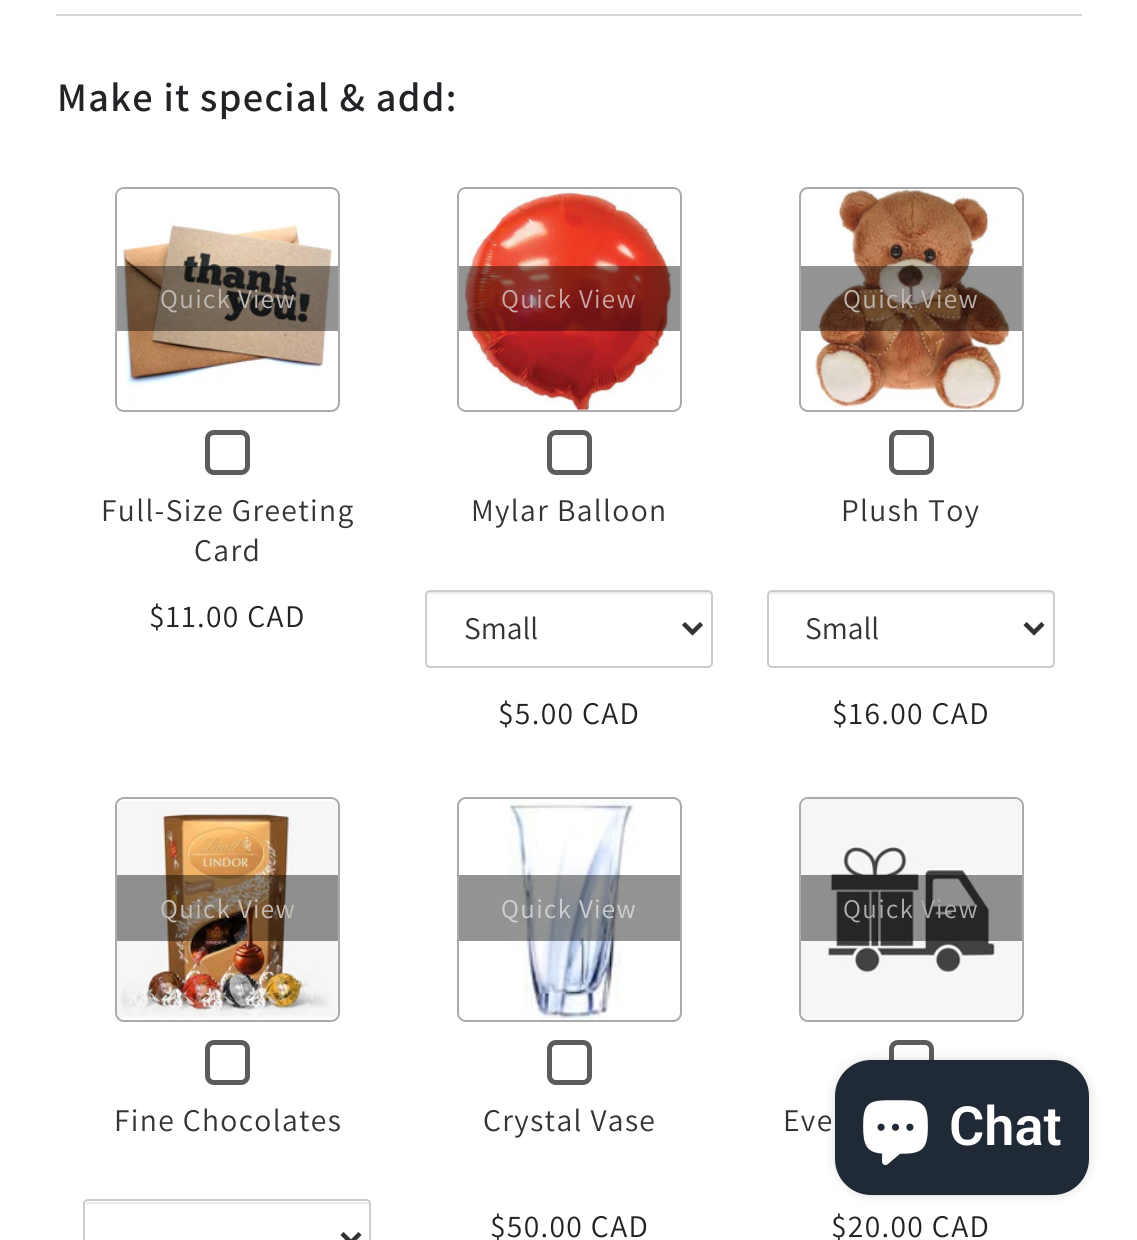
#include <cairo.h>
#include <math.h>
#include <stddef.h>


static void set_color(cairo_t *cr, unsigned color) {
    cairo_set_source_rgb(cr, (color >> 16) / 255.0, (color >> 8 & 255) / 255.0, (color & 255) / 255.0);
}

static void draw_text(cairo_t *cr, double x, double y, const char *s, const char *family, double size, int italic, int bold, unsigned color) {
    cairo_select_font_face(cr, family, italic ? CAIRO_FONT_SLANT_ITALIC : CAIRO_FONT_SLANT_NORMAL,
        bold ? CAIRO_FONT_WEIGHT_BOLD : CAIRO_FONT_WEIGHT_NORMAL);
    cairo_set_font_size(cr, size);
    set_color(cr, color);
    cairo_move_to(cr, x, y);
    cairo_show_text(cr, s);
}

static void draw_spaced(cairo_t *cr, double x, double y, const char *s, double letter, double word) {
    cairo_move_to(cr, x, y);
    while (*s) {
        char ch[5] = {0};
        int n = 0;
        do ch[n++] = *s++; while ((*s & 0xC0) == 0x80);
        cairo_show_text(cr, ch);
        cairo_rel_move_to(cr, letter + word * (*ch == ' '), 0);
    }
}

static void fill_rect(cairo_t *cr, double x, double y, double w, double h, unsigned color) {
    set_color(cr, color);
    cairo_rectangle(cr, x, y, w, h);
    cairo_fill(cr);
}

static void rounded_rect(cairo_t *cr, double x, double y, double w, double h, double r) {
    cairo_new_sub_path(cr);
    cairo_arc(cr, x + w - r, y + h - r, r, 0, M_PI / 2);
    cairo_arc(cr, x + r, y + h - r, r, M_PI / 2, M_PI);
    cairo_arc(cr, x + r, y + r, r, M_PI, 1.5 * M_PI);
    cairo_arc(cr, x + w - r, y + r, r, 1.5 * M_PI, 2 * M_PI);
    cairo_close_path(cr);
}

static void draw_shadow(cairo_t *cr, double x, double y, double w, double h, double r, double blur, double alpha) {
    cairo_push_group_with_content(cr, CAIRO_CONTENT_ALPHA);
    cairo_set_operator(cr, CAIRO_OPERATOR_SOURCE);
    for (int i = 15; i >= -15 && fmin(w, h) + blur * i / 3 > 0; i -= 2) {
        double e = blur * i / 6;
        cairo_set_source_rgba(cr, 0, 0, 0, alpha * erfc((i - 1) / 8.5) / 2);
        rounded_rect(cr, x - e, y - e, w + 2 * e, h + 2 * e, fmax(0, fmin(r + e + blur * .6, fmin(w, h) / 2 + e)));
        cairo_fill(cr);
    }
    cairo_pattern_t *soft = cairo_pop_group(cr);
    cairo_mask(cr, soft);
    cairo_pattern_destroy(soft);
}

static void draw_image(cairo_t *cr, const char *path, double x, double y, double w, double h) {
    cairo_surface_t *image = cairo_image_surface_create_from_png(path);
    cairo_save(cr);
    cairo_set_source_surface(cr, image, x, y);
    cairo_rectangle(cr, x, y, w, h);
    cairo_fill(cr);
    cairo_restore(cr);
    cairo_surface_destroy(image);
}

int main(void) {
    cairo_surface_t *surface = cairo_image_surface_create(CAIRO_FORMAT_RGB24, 1137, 1240);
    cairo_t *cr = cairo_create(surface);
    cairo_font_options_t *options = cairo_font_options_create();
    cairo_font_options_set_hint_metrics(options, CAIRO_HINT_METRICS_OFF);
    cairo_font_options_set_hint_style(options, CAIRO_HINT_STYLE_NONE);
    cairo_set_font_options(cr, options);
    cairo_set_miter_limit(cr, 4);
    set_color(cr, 0xFFFFFF);
    cairo_paint(cr);
    fill_rect(cr, 56, 14, 1026, 2, 0xD2D5D9);
    cairo_select_font_face(cr, "Assistant SemiBold", CAIRO_FONT_SLANT_NORMAL, CAIRO_FONT_WEIGHT_NORMAL);
    cairo_set_font_size(cr, 40.5);
    set_color(cr, 0x212326);
    draw_spaced(cr, 57, 111, "Make it special & add:", 1.35, 0);
    rounded_rect(cr, 116, 188, 223, 223, 8);
    set_color(cr, 0xAAAAAA);
    cairo_stroke(cr);
    draw_image(cr, "assets/img1.png", 117, 189, 220, 221);
    cairo_set_source_rgba(cr, 0, 0, 0, 0.42);
    cairo_rectangle(cr, 117, 266, 221, 65);
    cairo_fill(cr);
    cairo_select_font_face(cr, "Assistant", CAIRO_FONT_SLANT_NORMAL, CAIRO_FONT_WEIGHT_NORMAL);
    cairo_set_font_size(cr, 27);
    set_color(cr, 0xBEB9B5);
    draw_spaced(cr, 160, 308, "Quick View", 1.35, 0);
    rounded_rect(cr, 207.5, 432.5, 40, 40, 6.5);
    set_color(cr, 0x5C5C5C);
    cairo_set_line_width(cr, 5);
    cairo_stroke(cr);
    cairo_set_font_size(cr, 31.5);
    set_color(cr, 0x333333);
    draw_spaced(cr, 101, 521, "Full-Size Greeting", 1.35, 0);
    draw_spaced(cr, 194, 561, "Card", 1.35, 0);
    set_color(cr, 0x212326);
    draw_spaced(cr, 149, 627, "$11.00 CAD", 1.35, 0);
    rounded_rect(cr, 458, 188, 223, 223, 8);
    set_color(cr, 0xAAAAAA);
    cairo_set_line_width(cr, 2);
    cairo_stroke(cr);
    draw_image(cr, "assets/img2.png", 459, 189, 220, 221);
    cairo_set_source_rgba(cr, 0, 0, 0, 0.42);
    cairo_rectangle(cr, 459, 266, 221, 65);
    cairo_fill(cr);
    cairo_set_font_size(cr, 27);
    set_color(cr, 0xCDA7A6);
    draw_spaced(cr, 501, 308, "Quick View", 1.35, 0);
    rounded_rect(cr, 549.5, 432.5, 40, 40, 6.5);
    set_color(cr, 0x5C5C5C);
    cairo_set_line_width(cr, 5);
    cairo_stroke(cr);
    cairo_set_font_size(cr, 31.5);
    set_color(cr, 0x333333);
    draw_spaced(cr, 471, 521, "Mylar Balloon", 1.35, 0);
    set_color(cr, 0xEBEBEB);
    cairo_new_path(cr);
    cairo_move_to(cr, 430, 594);
    cairo_line_to(cr, 709, 594);
    cairo_curve_to(cr, 710, 594, 711, 595, 711, 596);
    cairo_curve_to(cr, 711, 594, 711, 592, 709, 592);
    cairo_line_to(cr, 430, 592);
    cairo_curve_to(cr, 428, 592, 428, 594, 428, 596);
    cairo_curve_to(cr, 428, 595, 429, 594, 430, 594);
    cairo_close_path(cr);
    cairo_fill(cr);
    rounded_rect(cr, 426, 591, 286, 76, 4);
    set_color(cr, 0xCCCCCC);
    cairo_set_line_width(cr, 2);
    cairo_stroke(cr);
    cairo_new_path(cr);
    cairo_move_to(cr, 683.5, 623.5);
    cairo_line_to(cr, 692.5, 632.5);
    cairo_line_to(cr, 701.5, 623.5);
    set_color(cr, 0x333333);
    cairo_set_line_width(cr, 4.5);
    cairo_stroke(cr);
    draw_text(cr, 464, 639, "Small", "Assistant", 31.5, 0, 0, 0x333333);
    set_color(cr, 0x212326);
    draw_spaced(cr, 498, 724, "$5.00 CAD", 1.35, 0);
    rounded_rect(cr, 800, 188, 223, 223, 8);
    set_color(cr, 0xAAAAAA);
    cairo_set_line_width(cr, 2);
    cairo_stroke(cr);
    draw_image(cr, "assets/img3.png", 813, 189, 197, 221);
    cairo_set_source_rgba(cr, 0, 0, 0, 0.42);
    cairo_rectangle(cr, 801, 266, 221, 65);
    cairo_fill(cr);
    cairo_set_font_size(cr, 27);
    set_color(cr, 0xC0B5AE);
    draw_spaced(cr, 843, 308, "Quick View", 1.35, 0);
    rounded_rect(cr, 891.5, 432.5, 40, 40, 6.5);
    set_color(cr, 0x5C5C5C);
    cairo_set_line_width(cr, 5);
    cairo_stroke(cr);
    cairo_set_font_size(cr, 31.5);
    set_color(cr, 0x333333);
    draw_spaced(cr, 841, 521, "Plush Toy", 1.35, 0);
    set_color(cr, 0xEBEBEB);
    cairo_new_path(cr);
    cairo_move_to(cr, 772, 594);
    cairo_line_to(cr, 1051, 594);
    cairo_curve_to(cr, 1052, 594, 1053, 595, 1053, 596);
    cairo_curve_to(cr, 1053, 594, 1053, 592, 1051, 592);
    cairo_line_to(cr, 772, 592);
    cairo_curve_to(cr, 770, 592, 770, 594, 770, 596);
    cairo_curve_to(cr, 770, 595, 771, 594, 772, 594);
    cairo_close_path(cr);
    cairo_fill(cr);
    rounded_rect(cr, 768, 591, 286, 76, 4);
    set_color(cr, 0xCCCCCC);
    cairo_set_line_width(cr, 2);
    cairo_stroke(cr);
    cairo_new_path(cr);
    cairo_move_to(cr, 1025, 623.5);
    cairo_line_to(cr, 1034, 632.5);
    cairo_line_to(cr, 1043, 623.5);
    set_color(cr, 0x333333);
    cairo_set_line_width(cr, 4.5);
    cairo_stroke(cr);
    draw_text(cr, 805, 639, "Small", "Assistant", 31.5, 0, 0, 0x333333);
    set_color(cr, 0x212326);
    draw_spaced(cr, 832, 724, "$16.00 CAD", 1.35, 0);
    rounded_rect(cr, 116, 798, 223, 223, 8);
    set_color(cr, 0xAAAAAA);
    cairo_set_line_width(cr, 2);
    cairo_stroke(cr);
    draw_image(cr, "assets/img4.png", 117, 801, 220, 217);
    cairo_set_source_rgba(cr, 0, 0, 0, 0.42);
    cairo_rectangle(cr, 117, 875, 221, 66);
    cairo_fill(cr);
    cairo_set_font_size(cr, 27);
    set_color(cr, 0xC7BFB6);
    draw_spaced(cr, 160, 918, "Quick View", 1.35, 0);
    rounded_rect(cr, 207.5, 1042.5, 40, 40, 6.5);
    set_color(cr, 0x5C5C5C);
    cairo_set_line_width(cr, 5);
    cairo_stroke(cr);
    cairo_set_font_size(cr, 31.5);
    set_color(cr, 0x333333);
    draw_spaced(cr, 114, 1131, "Fine Chocolates", 1.35, 0);
    set_color(cr, 0xEBEBEB);
    cairo_new_path(cr);
    cairo_move_to(cr, 88, 1204);
    cairo_line_to(cr, 367, 1204);
    cairo_curve_to(cr, 368, 1204, 369, 1205, 369, 1206);
    cairo_curve_to(cr, 369, 1204, 369, 1202, 367, 1202);
    cairo_line_to(cr, 88, 1202);
    cairo_curve_to(cr, 86, 1202, 86, 1204, 86, 1206);
    cairo_curve_to(cr, 86, 1205, 87, 1204, 88, 1204);
    cairo_close_path(cr);
    cairo_fill(cr);
    rounded_rect(cr, 84, 1200, 286, 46, 4);
    set_color(cr, 0xCCCCCC);
    cairo_set_line_width(cr, 2);
    cairo_stroke(cr);
    cairo_new_path(cr);
    cairo_move_to(cr, 342, 1233.5);
    cairo_line_to(cr, 351, 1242.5);
    cairo_line_to(cr, 360, 1233.5);
    set_color(cr, 0x333333);
    cairo_set_line_width(cr, 4.5);
    cairo_stroke(cr);
    rounded_rect(cr, 458, 798, 223, 223, 8);
    set_color(cr, 0xAAAAAA);
    cairo_set_line_width(cr, 2);
    cairo_stroke(cr);
    draw_image(cr, "assets/img5.png", 509, 799, 127, 221);
    cairo_set_source_rgba(cr, 0, 0, 0, 0.42);
    cairo_rectangle(cr, 459, 875, 221, 66);
    cairo_fill(cr);
    cairo_set_font_size(cr, 27);
    set_color(cr, 0xCFD0D2);
    draw_spaced(cr, 501, 918, "Quick View", 1.35, 0);
    rounded_rect(cr, 549.5, 1042.5, 40, 40, 6.5);
    set_color(cr, 0x5C5C5C);
    cairo_set_line_width(cr, 5);
    cairo_stroke(cr);
    cairo_set_font_size(cr, 31.5);
    set_color(cr, 0x333333);
    draw_spaced(cr, 483, 1131, "Crystal Vase", 1.35, 0);
    set_color(cr, 0x212326);
    draw_spaced(cr, 490, 1237, "$50.00 CAD", 1.35, 0);
    rounded_rect(cr, 800, 798, 223, 223, 8);
    set_color(cr, 0xAAAAAA);
    cairo_set_line_width(cr, 2);
    cairo_stroke(cr);
    draw_image(cr, "assets/img6.png", 801, 799, 220, 220);
    cairo_set_source_rgba(cr, 0, 0, 0, 0.42);
    cairo_rectangle(cr, 801, 875, 221, 66);
    cairo_fill(cr);
    cairo_set_font_size(cr, 27);
    set_color(cr, 0xAEAEAE);
    draw_spaced(cr, 843, 918, "Quick View", 1.35, 0);
    rounded_rect(cr, 891.5, 1042.5, 40, 40, 6.5);
    set_color(cr, 0x5C5C5C);
    cairo_set_line_width(cr, 5);
    cairo_stroke(cr);
    cairo_set_font_size(cr, 31.5);
    set_color(cr, 0x333333);
    draw_spaced(cr, 783, 1131, "Eve", 1.35, 0);
    set_color(cr, 0x212326);
    draw_spaced(cr, 831, 1237, "$20.00 CAD", 1.35, 0);
    set_color(cr, 0x000000);
    draw_shadow(cr, 835, 1060, 254, 135, 36, 5.5, 0.15);
    set_color(cr, 0x202A36);
    rounded_rect(cr, 835, 1060, 254, 135, 36);
    cairo_fill(cr);
    draw_image(cr, "assets/img7.png", 863, 1100, 65, 65);
    draw_text(cr, 949, 1145, "Chat", "Roboto SemiBold", 54, 0, 0, 0xFFFFFF);
    cairo_surface_write_to_png(surface, "output.png");
    cairo_font_options_destroy(options);
    cairo_destroy(cr);
    cairo_surface_destroy(surface);
    return 0;
}
